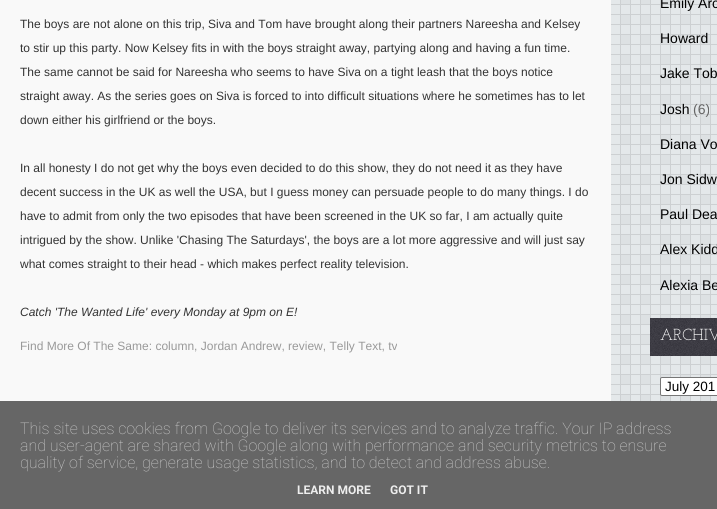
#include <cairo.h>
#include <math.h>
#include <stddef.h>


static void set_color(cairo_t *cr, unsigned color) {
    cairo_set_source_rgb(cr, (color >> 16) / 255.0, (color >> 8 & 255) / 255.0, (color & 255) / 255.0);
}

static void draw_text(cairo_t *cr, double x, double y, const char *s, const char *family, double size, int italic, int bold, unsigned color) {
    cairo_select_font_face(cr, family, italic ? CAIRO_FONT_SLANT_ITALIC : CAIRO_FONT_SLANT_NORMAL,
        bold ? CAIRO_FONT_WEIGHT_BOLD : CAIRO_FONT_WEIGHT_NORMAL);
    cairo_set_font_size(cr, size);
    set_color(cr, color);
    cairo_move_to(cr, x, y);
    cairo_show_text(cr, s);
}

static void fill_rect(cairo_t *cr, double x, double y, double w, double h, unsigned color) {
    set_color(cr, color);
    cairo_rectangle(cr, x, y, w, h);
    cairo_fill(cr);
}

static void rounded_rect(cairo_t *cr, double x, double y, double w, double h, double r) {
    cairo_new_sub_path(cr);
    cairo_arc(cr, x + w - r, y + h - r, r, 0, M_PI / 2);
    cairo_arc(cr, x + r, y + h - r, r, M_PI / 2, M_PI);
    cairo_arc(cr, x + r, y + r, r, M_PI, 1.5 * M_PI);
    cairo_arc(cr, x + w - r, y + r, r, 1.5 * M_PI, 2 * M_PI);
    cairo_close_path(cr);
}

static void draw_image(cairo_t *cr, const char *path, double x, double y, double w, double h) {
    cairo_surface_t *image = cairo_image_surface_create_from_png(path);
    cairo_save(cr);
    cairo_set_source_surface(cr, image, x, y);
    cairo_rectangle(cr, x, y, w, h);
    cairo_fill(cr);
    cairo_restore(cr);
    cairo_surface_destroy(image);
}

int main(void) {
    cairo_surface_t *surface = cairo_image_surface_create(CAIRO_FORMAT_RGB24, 717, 509);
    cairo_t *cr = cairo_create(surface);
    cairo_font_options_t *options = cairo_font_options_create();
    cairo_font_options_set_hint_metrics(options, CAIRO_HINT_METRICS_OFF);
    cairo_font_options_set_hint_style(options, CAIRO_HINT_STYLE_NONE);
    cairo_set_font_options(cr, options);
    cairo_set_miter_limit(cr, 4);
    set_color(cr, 0xFFFFFF);
    cairo_paint(cr);
    draw_image(cr, "assets/img1.png", 611, 0, 106, 401);
    fill_rect(cr, 0, 0, 611, 401, 0xF9F9F9);
    draw_text(cr, 20, 28, "The boys are not alone on this trip, Siva and Tom have brought along their partners Nareesha and Kelsey", "Liberation Sans", 12, 0, 0, 0x333333);
    draw_text(cr, 20, 52, "to stir up this party. Now Kelsey fits in with the boys straight away, partying along and having a fun time.", "Liberation Sans", 12, 0, 0, 0x333333);
    draw_text(cr, 20, 76, "The same cannot be said for Nareesha who seems to have Siva on a tight leash that the boys notice", "Liberation Sans", 12, 0, 0, 0x333333);
    draw_text(cr, 20, 100, "straight away. As the series goes on Siva is forced to into difficult situations where he sometimes has to let", "Liberation Sans", 12, 0, 0, 0x333333);
    draw_text(cr, 20, 124, "down either his girlfriend or the boys.", "Liberation Sans", 12, 0, 0, 0x333333);
    draw_text(cr, 20, 172, "In all honesty I do not get why the boys even decided to do this show, they do not need it as they have", "Liberation Sans", 12, 0, 0, 0x333333);
    draw_text(cr, 20, 196, "decent success in the UK as well the USA, but I guess money can persuade people to do many things. I do", "Liberation Sans", 12, 0, 0, 0x333333);
    draw_text(cr, 20, 220, "have to admit from only the two episodes that have been screened in the UK so far, I am actually quite", "Liberation Sans", 12, 0, 0, 0x333333);
    draw_text(cr, 20, 244, "intrigued by the show. Unlike 'Chasing The Saturdays', the boys are a lot more aggressive and will just say", "Liberation Sans", 12, 0, 0, 0x333333);
    draw_text(cr, 20, 268, "what comes straight to their head - which makes perfect reality television.", "Liberation Sans", 12, 0, 0, 0x333333);
    draw_text(cr, 20, 316, "Catch 'The Wanted Life' every Monday at 9pm on E!", "Liberation Sans", 12, 1, 0, 0x333333);
    draw_text(cr, 20, 350, "Find More Of The Same: column, Jordan Andrew, review, Telly Text, tv", "Liberation Sans", 12, 0, 0, 0x999999);
    draw_text(cr, 660, 8, "Emily Arc", "Liberation Sans", 14, 0, 0, 0x000000);
    draw_text(cr, 660, 43, "Howard", "Liberation Sans", 14, 0, 0, 0x000000);
    draw_text(cr, 660, 78, "Jake Tob", "Liberation Sans", 14, 0, 0, 0x000000);
    draw_text(cr, 660, 114, "Josh", "Liberation Sans", 14, 0, 0, 0x000000);
    draw_text(cr, 693, 114, "(6)", "Liberation Sans", 14, 0, 0, 0x666666);
    draw_text(cr, 660, 149, "Diana Vo", "Liberation Sans", 14, 0, 0, 0x000000);
    draw_text(cr, 660, 184, "Jon Sidw", "Liberation Sans", 14, 0, 0, 0x000000);
    draw_text(cr, 660, 219, "Paul Dea", "Liberation Sans", 14, 0, 0, 0x000000);
    draw_text(cr, 660, 254, "Alex Kidd", "Liberation Sans", 14, 0, 0, 0x000000);
    draw_text(cr, 660, 290, "Alexia Be", "Liberation Sans", 14, 0, 0, 0x000000);
    draw_image(cr, "assets/img2.png", 650, 318, 67, 38);
    draw_text(cr, 660, 340, "ARCHIV", "Josefin Slab Thin", 16, 0, 0, 0xFFFFFF);
    rounded_rect(cr, 660.5, 377.5, 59, 18, 1.5);
    cairo_fill_preserve(cr);
    set_color(cr, 0x767676);
    cairo_set_line_width(cr, 1);
    cairo_stroke(cr);
    draw_text(cr, 665, 391, "July 201", "Liberation Sans", 13.5, 0, 0, 0x000000);
    fill_rect(cr, 0, 401, 717, 108, 0x666666);
    draw_text(cr, 20, 434, "This site uses cookies from Google to deliver its services and to analyze traffic. Your IP address", "Roboto Thin", 16, 0, 0, 0xCCCCCC);
    draw_text(cr, 20, 451, "and user-agent are shared with Google along with performance and security metrics to ensure", "Roboto Thin", 16, 0, 0, 0xCCCCCC);
    draw_text(cr, 20, 468, "quality of service, generate usage statistics, and to detect and address abuse.", "Roboto Thin", 16, 0, 0, 0xCCCCCC);
    draw_text(cr, 297, 494, "LEARN MORE", "Roboto", 12, 0, 1, 0xEEEEEE);
    draw_text(cr, 390, 494, "GOT IT", "Roboto", 12, 0, 1, 0xEEEEEE);
    cairo_surface_write_to_png(surface, "output.png");
    cairo_font_options_destroy(options);
    cairo_destroy(cr);
    cairo_surface_destroy(surface);
    return 0;
}
